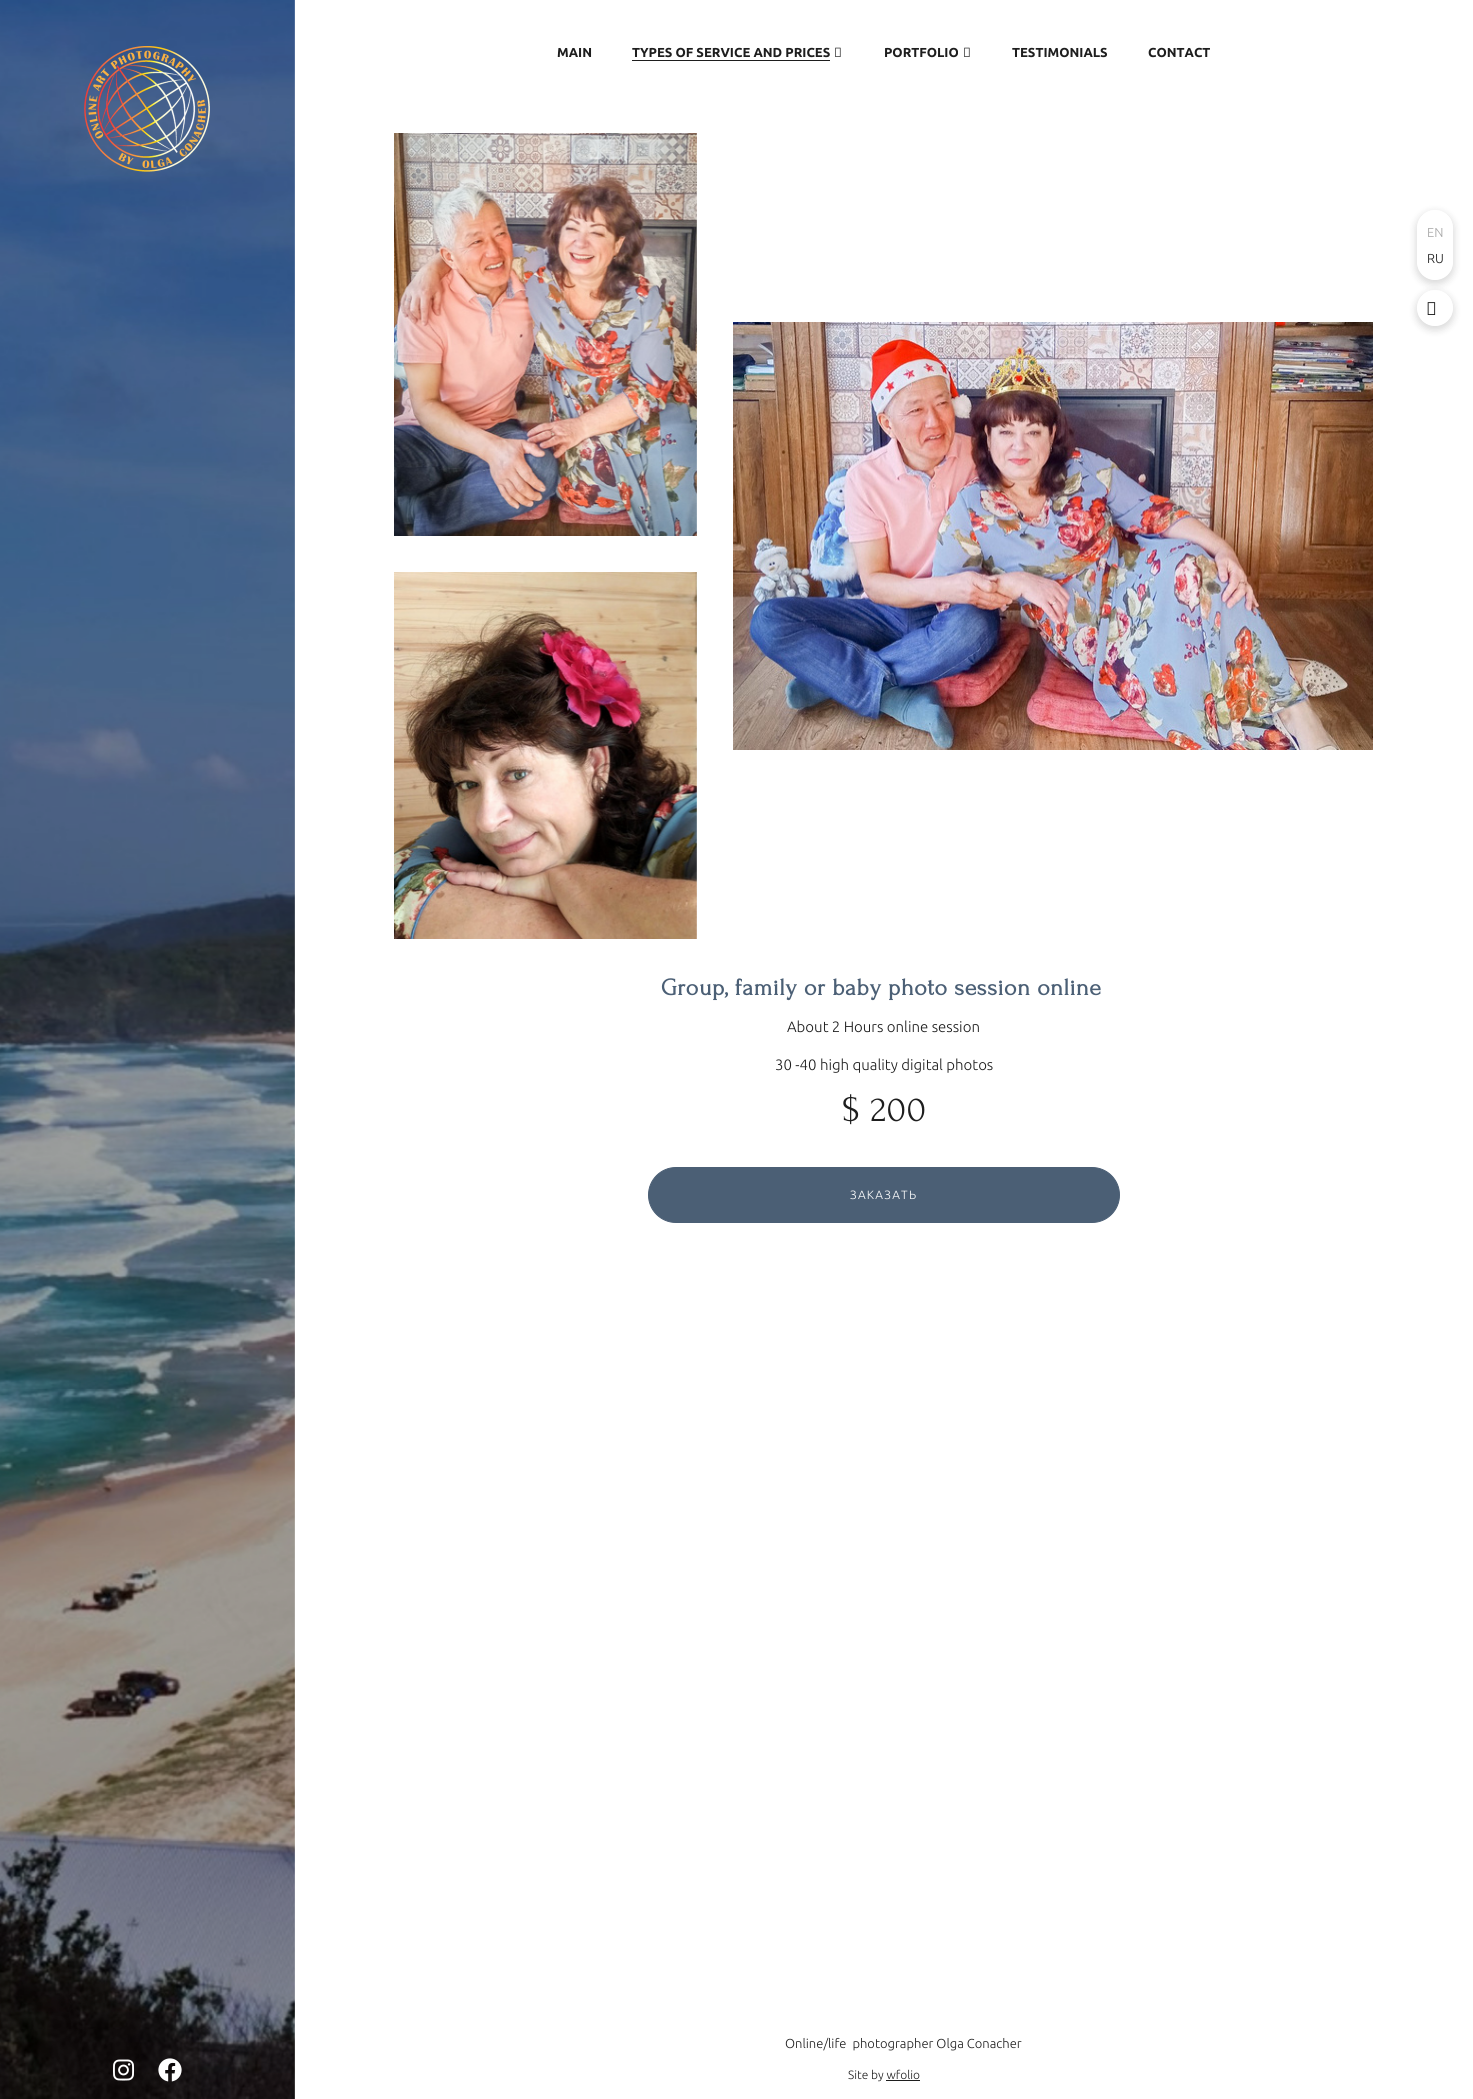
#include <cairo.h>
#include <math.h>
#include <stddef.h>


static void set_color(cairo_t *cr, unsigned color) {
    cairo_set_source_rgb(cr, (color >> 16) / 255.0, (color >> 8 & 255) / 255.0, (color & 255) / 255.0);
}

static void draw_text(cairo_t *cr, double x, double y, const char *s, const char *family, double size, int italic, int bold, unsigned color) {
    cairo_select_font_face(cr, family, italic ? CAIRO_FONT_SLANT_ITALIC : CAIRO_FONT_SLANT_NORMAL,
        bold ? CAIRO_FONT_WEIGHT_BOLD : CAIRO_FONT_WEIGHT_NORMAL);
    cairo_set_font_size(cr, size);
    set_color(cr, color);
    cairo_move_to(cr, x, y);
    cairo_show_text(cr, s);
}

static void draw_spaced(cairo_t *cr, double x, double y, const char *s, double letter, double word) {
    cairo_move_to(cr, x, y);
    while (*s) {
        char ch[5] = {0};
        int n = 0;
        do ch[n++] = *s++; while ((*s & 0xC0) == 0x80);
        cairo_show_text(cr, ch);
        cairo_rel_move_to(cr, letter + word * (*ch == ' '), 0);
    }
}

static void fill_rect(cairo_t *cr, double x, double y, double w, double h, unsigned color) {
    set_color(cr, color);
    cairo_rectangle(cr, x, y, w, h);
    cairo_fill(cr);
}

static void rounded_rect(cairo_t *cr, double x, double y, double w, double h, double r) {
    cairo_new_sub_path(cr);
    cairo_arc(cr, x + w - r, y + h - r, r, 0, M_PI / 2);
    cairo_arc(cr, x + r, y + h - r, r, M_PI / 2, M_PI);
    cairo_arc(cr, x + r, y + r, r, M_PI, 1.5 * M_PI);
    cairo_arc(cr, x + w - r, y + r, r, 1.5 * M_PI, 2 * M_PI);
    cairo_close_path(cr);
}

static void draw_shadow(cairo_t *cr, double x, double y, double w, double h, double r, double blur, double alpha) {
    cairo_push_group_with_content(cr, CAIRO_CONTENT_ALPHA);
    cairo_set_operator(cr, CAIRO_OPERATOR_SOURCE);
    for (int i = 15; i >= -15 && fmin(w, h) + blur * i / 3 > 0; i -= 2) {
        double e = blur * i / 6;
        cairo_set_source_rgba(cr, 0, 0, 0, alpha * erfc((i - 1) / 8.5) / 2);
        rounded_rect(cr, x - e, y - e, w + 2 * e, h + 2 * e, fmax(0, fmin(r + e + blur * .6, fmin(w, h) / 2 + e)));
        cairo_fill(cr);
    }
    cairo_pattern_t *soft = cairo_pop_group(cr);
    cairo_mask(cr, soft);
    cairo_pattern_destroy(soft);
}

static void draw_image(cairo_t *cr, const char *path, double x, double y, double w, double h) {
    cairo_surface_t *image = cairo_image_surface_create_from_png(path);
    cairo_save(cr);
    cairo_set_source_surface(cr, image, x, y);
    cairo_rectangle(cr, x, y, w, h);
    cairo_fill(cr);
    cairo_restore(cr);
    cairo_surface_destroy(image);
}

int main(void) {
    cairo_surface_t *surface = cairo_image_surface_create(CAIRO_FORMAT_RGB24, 1473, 2099);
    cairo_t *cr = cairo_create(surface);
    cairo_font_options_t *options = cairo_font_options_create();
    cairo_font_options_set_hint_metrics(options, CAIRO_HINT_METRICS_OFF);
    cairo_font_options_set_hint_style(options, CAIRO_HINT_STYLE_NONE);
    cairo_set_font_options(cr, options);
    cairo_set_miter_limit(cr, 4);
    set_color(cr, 0xFFFFFF);
    cairo_paint(cr);
    draw_image(cr, "assets/img1.png", 0, 0, 295, 2099);
    draw_image(cr, "assets/img2.png", 84, 46, 126, 126);
    draw_image(cr, "assets/img3.png", 113, 2059, 21, 22);
    draw_image(cr, "assets/img4.png", 158, 2058, 24, 24);
    draw_text(cr, 557, 57, "MAIN", "Ubuntu", 13, 0, 1, 0x1E1E1E);
    draw_text(cr, 632, 57, "TYPES OF SERVICE AND PRICES", "Ubuntu", 13, 0, 1, 0x1E1E1E);
    fill_rect(cr, 632, 60, 198, 1, 0x1E1E1E);
    draw_image(cr, "assets/img5.png", 835, 47, 6, 10);
    draw_text(cr, 884, 57, "PORTFOLIO", "Ubuntu", 13, 0, 1, 0x1E1E1E);
    draw_image(cr, "assets/img5.png", 964, 47, 6, 10);
    draw_text(cr, 1012, 57, "TESTIMONIALS", "Ubuntu", 13, 0, 1, 0x1E1E1E);
    draw_text(cr, 1148, 57, "CONTACT", "Ubuntu", 13, 0, 1, 0x1E1E1E);
    draw_image(cr, "assets/img6.png", 394, 133, 303, 403);
    draw_image(cr, "assets/img7.png", 394, 572, 303, 367);
    draw_image(cr, "assets/img8.png", 733, 322, 640, 428);
    cairo_select_font_face(cr, "Forum", CAIRO_FONT_SLANT_NORMAL, CAIRO_FONT_WEIGHT_BOLD);
    cairo_set_font_size(cr, 24);
    set_color(cr, 0x4B5F75);
    draw_spaced(cr, 661, 995, "Group, family or baby photo session online", 0.5, 0);
    draw_text(cr, 787, 1032, "About 2 Hours online session", "Ubuntu Light", 15, 0, 0, 0x1E1E1E);
    draw_text(cr, 775, 1070, "30 -40 high quality digital photos", "Ubuntu Light", 15, 0, 0, 0x1E1E1E);
    cairo_select_font_face(cr, "Forum", CAIRO_FONT_SLANT_NORMAL, CAIRO_FONT_WEIGHT_NORMAL);
    cairo_set_font_size(cr, 36);
    draw_spaced(cr, 842, 1121, "$ 200", 0.75, 0);
    set_color(cr, 0x4B5F75);
    rounded_rect(cr, 648.5, 1167.5, 471, 55, 27.5);
    cairo_fill_preserve(cr);
    cairo_set_line_width(cr, 1);
    cairo_stroke(cr);
    cairo_select_font_face(cr, "Ubuntu Light", CAIRO_FONT_SLANT_NORMAL, CAIRO_FONT_WEIGHT_NORMAL);
    cairo_set_font_size(cr, 12);
    set_color(cr, 0xFFFFFF);
    draw_spaced(cr, 850, 1199, "ЗАКАЗАТЬ", 1.25, 0);
    draw_text(cr, 785, 2048, "Online/life  photographer Olga Conacher", "Ubuntu Light", 13, 0, 0, 0x1E1E1E);
    draw_text(cr, 848, 2079, "Site by wfolio", "Ubuntu Light", 12, 0, 0, 0x1E1E1E);
    fill_rect(cr, 886, 2080, 34, 1, 0x1E1E1E);
    cairo_save(cr);
    cairo_set_fill_rule(cr, CAIRO_FILL_RULE_EVEN_ODD);
    cairo_new_path(cr);
    cairo_move_to(cr, 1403, 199);
    cairo_line_to(cr, 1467, 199);
    cairo_line_to(cr, 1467, 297);
    cairo_line_to(cr, 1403, 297);
    cairo_close_path(cr);
    cairo_move_to(cr, 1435, 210);
    cairo_curve_to(cr, 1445, 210, 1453, 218, 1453, 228);
    cairo_line_to(cr, 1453, 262);
    cairo_curve_to(cr, 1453, 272, 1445, 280, 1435, 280);
    cairo_curve_to(cr, 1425, 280, 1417, 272, 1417, 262);
    cairo_line_to(cr, 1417, 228);
    cairo_curve_to(cr, 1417, 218, 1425, 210, 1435, 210);
    cairo_close_path(cr);
    cairo_clip(cr);
    set_color(cr, 0x000000);
    draw_shadow(cr, 1416, 212, 38, 72, 19, 4, 0.15);
    cairo_restore(cr);
    draw_text(cr, 1427, 237, "EN", "Ubuntu Light", 13, 0, 0, 0xA5A5A5);
    draw_text(cr, 1427, 263, "RU", "Ubuntu Light", 13, 0, 0, 0x1E1E1E);
    cairo_save(cr);
    cairo_set_fill_rule(cr, CAIRO_FILL_RULE_EVEN_ODD);
    cairo_new_path(cr);
    cairo_move_to(cr, 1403, 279);
    cairo_line_to(cr, 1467, 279);
    cairo_line_to(cr, 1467, 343);
    cairo_line_to(cr, 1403, 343);
    cairo_close_path(cr);
    cairo_move_to(cr, 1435, 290);
    cairo_curve_to(cr, 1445, 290, 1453, 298, 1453, 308);
    cairo_curve_to(cr, 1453, 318, 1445, 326, 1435, 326);
    cairo_curve_to(cr, 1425, 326, 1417, 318, 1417, 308);
    cairo_curve_to(cr, 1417, 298, 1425, 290, 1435, 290);
    cairo_close_path(cr);
    cairo_clip(cr);
    set_color(cr, 0x000000);
    draw_shadow(cr, 1416, 292, 38, 38, 19, 4, 0.15);
    cairo_restore(cr);
    draw_image(cr, "assets/img9.png", 1427, 302, 9, 13);
    cairo_surface_write_to_png(surface, "output.png");
    cairo_font_options_destroy(options);
    cairo_destroy(cr);
    cairo_surface_destroy(surface);
    return 0;
}
